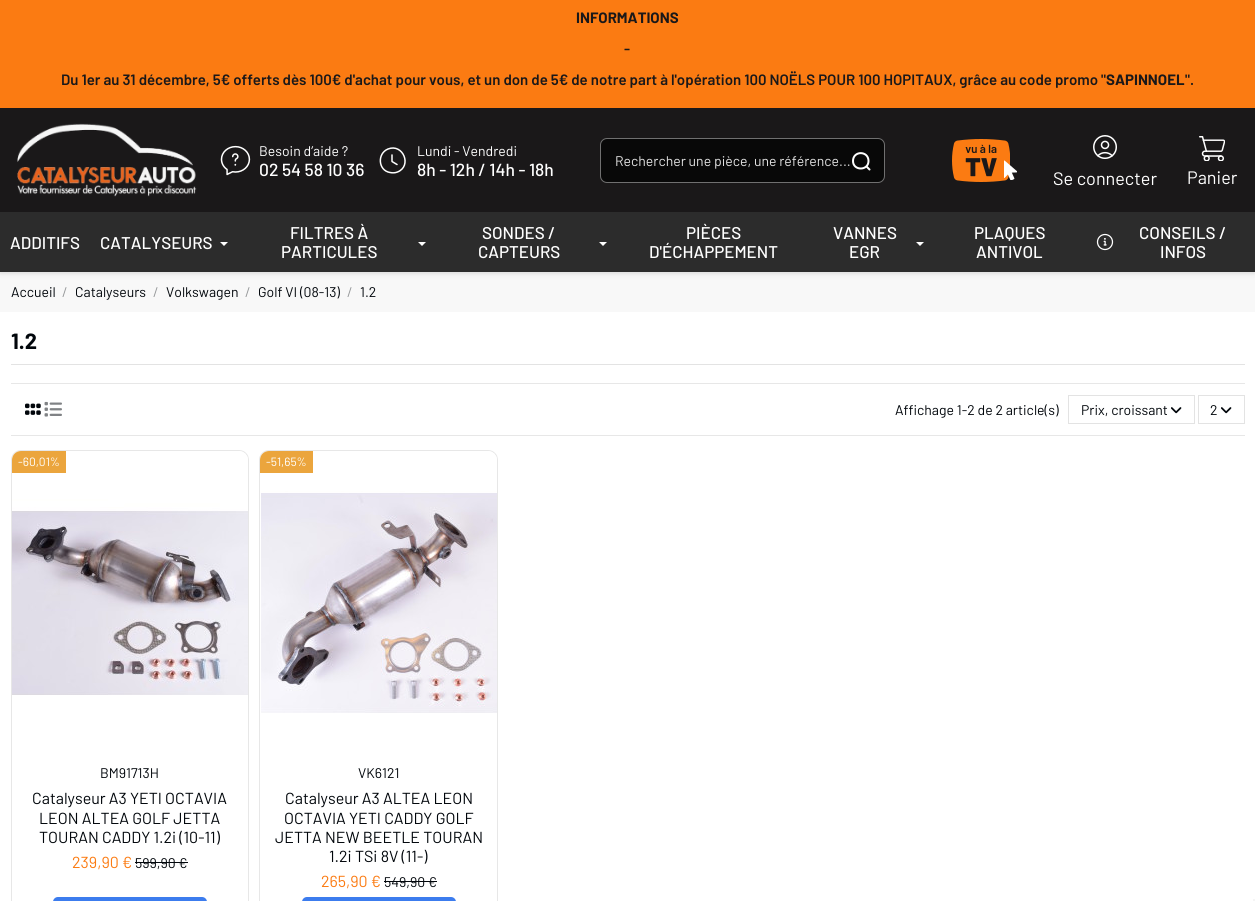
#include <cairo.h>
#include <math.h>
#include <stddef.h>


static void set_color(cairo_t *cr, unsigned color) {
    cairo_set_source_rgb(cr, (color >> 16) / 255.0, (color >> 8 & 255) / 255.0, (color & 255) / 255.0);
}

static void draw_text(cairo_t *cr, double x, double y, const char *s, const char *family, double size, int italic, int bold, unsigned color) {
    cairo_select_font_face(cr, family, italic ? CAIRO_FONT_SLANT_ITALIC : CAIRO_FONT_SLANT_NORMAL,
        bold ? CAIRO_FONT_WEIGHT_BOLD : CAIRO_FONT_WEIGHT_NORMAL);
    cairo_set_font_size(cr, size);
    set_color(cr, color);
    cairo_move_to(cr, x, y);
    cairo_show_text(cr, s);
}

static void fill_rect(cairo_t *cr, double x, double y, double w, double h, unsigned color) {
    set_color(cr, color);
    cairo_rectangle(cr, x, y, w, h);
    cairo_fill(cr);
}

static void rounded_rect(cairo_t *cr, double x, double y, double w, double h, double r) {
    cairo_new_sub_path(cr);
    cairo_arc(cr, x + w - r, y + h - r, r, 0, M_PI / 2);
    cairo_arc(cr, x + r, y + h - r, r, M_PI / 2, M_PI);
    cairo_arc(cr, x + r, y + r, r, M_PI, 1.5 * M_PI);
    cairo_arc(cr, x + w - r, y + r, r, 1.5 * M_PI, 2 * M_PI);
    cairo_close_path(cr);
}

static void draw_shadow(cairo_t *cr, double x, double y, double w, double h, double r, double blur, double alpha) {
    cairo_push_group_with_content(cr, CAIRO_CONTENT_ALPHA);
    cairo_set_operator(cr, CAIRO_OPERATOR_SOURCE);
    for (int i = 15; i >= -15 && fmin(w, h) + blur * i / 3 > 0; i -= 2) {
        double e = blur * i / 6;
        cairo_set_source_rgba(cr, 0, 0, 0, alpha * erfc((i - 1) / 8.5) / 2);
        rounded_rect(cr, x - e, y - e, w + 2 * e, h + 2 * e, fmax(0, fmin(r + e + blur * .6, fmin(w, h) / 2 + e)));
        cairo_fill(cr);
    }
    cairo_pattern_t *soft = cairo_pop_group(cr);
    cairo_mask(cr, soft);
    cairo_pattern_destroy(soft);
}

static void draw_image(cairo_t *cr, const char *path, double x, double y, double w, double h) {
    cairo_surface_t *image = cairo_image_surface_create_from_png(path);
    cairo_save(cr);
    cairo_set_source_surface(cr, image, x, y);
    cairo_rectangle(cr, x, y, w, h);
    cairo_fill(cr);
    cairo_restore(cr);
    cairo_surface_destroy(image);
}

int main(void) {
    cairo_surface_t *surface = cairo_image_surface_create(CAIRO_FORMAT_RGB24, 1255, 901);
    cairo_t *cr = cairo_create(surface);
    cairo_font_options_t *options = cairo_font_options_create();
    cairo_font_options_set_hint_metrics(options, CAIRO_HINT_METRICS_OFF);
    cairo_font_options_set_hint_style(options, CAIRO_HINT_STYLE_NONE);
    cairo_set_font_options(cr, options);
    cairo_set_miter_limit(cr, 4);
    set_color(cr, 0xFFFFFF);
    cairo_paint(cr);
    fill_rect(cr, 0, 272, 1255, 40, 0xF8F8F8);
    set_color(cr, 0x000000);
    draw_shadow(cr, 0, -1, 1255, 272, 0, 3.5, 0.25);
    fill_rect(cr, 0, 108, 1255, 104, 0x1A1819);
    fill_rect(cr, 0, 0, 1255, 108, 0xFB7B12);
    draw_text(cr, 576, 23, "INFORMATIONS", "Barlow", 15, 0, 1, 0x1A1819);
    draw_text(cr, 624, 54, "-", "Barlow SemiBold", 15, 0, 0, 0x1A1819);
    draw_text(cr, 61, 85, "Du 1er au 31 décembre, 5€ offerts dès 100€ d'achat pour vous, et un don de 5€ de notre part à l'opération 100 NOËLS POUR 100 HOPITAUX, grâce au code promo \"", "Barlow SemiBold", 15, 0, 0, 0x1A1819);
    draw_text(cr, 1106, 85, "SAPINNOEL", "Barlow", 15, 0, 1, 0x1A1819);
    draw_text(cr, 1185, 85, "\".", "Barlow SemiBold", 15, 0, 0, 0x1A1819);
    draw_image(cr, "assets/img1.png", 17, 123, 180, 74);
    draw_image(cr, "assets/img2.png", 220, 145, 31, 31);
    draw_text(cr, 259, 156, "Besoin d’aide ?", "Barlow", 14, 0, 0, 0xFFFFFF);
    draw_text(cr, 259, 176, "02 54 58 10 36", "Barlow Medium", 17.5, 0, 0, 0xFFFFFF);
    cairo_new_path(cr);
    cairo_move_to(cr, 388, 149);
    cairo_curve_to(cr, 403, 143, 412.5, 166, 397.5, 172);
    cairo_curve_to(cr, 395, 173, 392.5, 173, 390, 172.5);
    cairo_curve_to(cr, 378, 170.5, 377, 153.5, 388, 149);
    cairo_move_to(cr, 392, 155);
    cairo_line_to(cr, 392, 161.5);
    cairo_line_to(cr, 397, 164.5);
    cairo_set_line_width(cr, 1.5);
    cairo_set_line_cap(cr, CAIRO_LINE_CAP_ROUND);
    cairo_set_line_join(cr, CAIRO_LINE_JOIN_ROUND);
    cairo_stroke(cr);
    draw_text(cr, 417, 156, "Lundi - Vendredi", "Barlow", 14, 0, 0, 0xFFFFFF);
    draw_text(cr, 417, 176, "8h - 12h / 14h - 18h", "Barlow Medium", 17.5, 0, 0, 0xFFFFFF);
    set_color(cr, 0x080808);
    rounded_rect(cr, 600.5, 138.5, 284, 44, 6.5);
    cairo_fill_preserve(cr);
    set_color(cr, 0x707070);
    cairo_set_line_width(cr, 1);
    cairo_set_line_cap(cr, CAIRO_LINE_CAP_BUTT);
    cairo_set_line_join(cr, CAIRO_LINE_JOIN_MITER);
    cairo_stroke(cr);
    draw_text(cr, 615, 166, "Rechercher une pièce, une référence...", "Barlow", 14, 0, 0, 0xE3E3E3);
    cairo_new_path(cr);
    cairo_move_to(cr, 869.5, 169.5);
    cairo_line_to(cr, 866.5, 166.5);
    cairo_move_to(cr, 853, 161);
    cairo_curve_to(cr, 853, 171, 868.5, 171, 868.5, 161);
    cairo_curve_to(cr, 868.5, 150.5, 853, 150.5, 853, 161);
    set_color(cr, 0xFFFFFF);
    cairo_set_line_width(cr, 2);
    cairo_set_line_cap(cr, CAIRO_LINE_CAP_ROUND);
    cairo_set_line_join(cr, CAIRO_LINE_JOIN_ROUND);
    cairo_stroke(cr);
    draw_image(cr, "assets/img3.png", 952, 139, 65, 43);
    draw_image(cr, "assets/img4.png", 1093, 135, 24, 24);
    draw_text(cr, 1053, 185, "Se connecter", "Barlow", 18, 0, 0, 0xFFFFFF);
    draw_image(cr, "assets/img5.png", 1199, 136, 26, 25);
    draw_text(cr, 1187, 184, "Panier", "Barlow", 18, 0, 0, 0xFFFFFF);
    fill_rect(cr, 0, 212, 1255, 60, 0x2C2C2C);
    draw_text(cr, 10, 249, "ADDITIFS", "Barlow Medium", 17, 0, 0, 0xFFFFFF);
    draw_text(cr, 100, 249, "CATALYSEURS", "Barlow Medium", 17, 0, 0, 0xFFFFFF);
    cairo_new_path(cr);
    cairo_move_to(cr, 220, 242);
    cairo_line_to(cr, 228, 242);
    cairo_line_to(cr, 224, 246);
    cairo_close_path(cr);
    cairo_fill(cr);
    draw_text(cr, 290, 239, "FILTRES À", "Barlow Medium", 17, 0, 0, 0xFFFFFF);
    cairo_new_path(cr);
    cairo_move_to(cr, 418, 242);
    cairo_line_to(cr, 426, 242);
    cairo_line_to(cr, 422, 246);
    cairo_close_path(cr);
    cairo_fill(cr);
    draw_text(cr, 281, 258, "PARTICULES", "Barlow Medium", 17, 0, 0, 0xFFFFFF);
    draw_text(cr, 482, 239, "SONDES /", "Barlow Medium", 17, 0, 0, 0xFFFFFF);
    cairo_new_path(cr);
    cairo_move_to(cr, 599, 242);
    cairo_line_to(cr, 607, 242);
    cairo_line_to(cr, 603, 246);
    cairo_close_path(cr);
    cairo_fill(cr);
    draw_text(cr, 478, 258, "CAPTEURS", "Barlow Medium", 17, 0, 0, 0xFFFFFF);
    draw_text(cr, 686, 239, "PIÈCES", "Barlow Medium", 17, 0, 0, 0xFFFFFF);
    draw_text(cr, 649, 258, "D'ÉCHAPPEMENT", "Barlow Medium", 17, 0, 0, 0xFFFFFF);
    draw_text(cr, 833, 239, "VANNES", "Barlow Medium", 17, 0, 0, 0xFFFFFF);
    cairo_new_path(cr);
    cairo_move_to(cr, 916, 242);
    cairo_line_to(cr, 924, 242);
    cairo_line_to(cr, 920, 246);
    cairo_close_path(cr);
    cairo_fill(cr);
    draw_text(cr, 849, 258, "EGR", "Barlow Medium", 17, 0, 0, 0xFFFFFF);
    draw_text(cr, 974, 239, "PLAQUES", "Barlow Medium", 17, 0, 0, 0xFFFFFF);
    draw_text(cr, 976, 258, "ANTIVOL", "Barlow Medium", 17, 0, 0, 0xFFFFFF);
    draw_image(cr, "assets/img6.png", 1096, 233, 18, 18);
    draw_text(cr, 1139, 239, "CONSEILS /", "Barlow Medium", 17, 0, 0, 0xFFFFFF);
    draw_text(cr, 1160, 258, "INFOS", "Barlow Medium", 17, 0, 0, 0xFFFFFF);
    draw_text(cr, 11, 297, "Accueil", "Barlow", 14, 0, 0, 0x01060B);
    draw_text(cr, 62, 297, "/", "Barlow", 14, 0, 0, 0x959799);
    draw_text(cr, 75, 297, "Catalyseurs", "Barlow", 14, 0, 0, 0x01060B);
    draw_text(cr, 153, 297, "/", "Barlow", 14, 0, 0, 0x959799);
    draw_text(cr, 166, 297, "Volkswagen", "Barlow", 14, 0, 0, 0x01060B);
    draw_text(cr, 245, 297, "/", "Barlow", 14, 0, 0, 0x959799);
    draw_text(cr, 258, 297, "Golf VI (08-13)", "Barlow", 14, 0, 0, 0x01060B);
    draw_text(cr, 347, 297, "/", "Barlow", 14, 0, 0, 0x959799);
    draw_text(cr, 360, 297, "1.2", "Barlow", 14, 0, 0, 0x01060B);
    fill_rect(cr, 11, 364, 1234, 1, 0xE3E3E3);
    draw_text(cr, 11, 349, "1.2", "Barlow", 22, 0, 1, 0x01060B);
    fill_rect(cr, 11, 383, 1234, 1, 0xE7E7E7);
    fill_rect(cr, 11, 435, 1234, 1, 0xE7E7E7);
    draw_image(cr, "assets/img7.png", 25, 403, 16, 12);
    draw_image(cr, "assets/img8.png", 44, 401, 18, 16);
    draw_text(cr, 895, 415, "Affichage 1-2 de 2 article(s)", "Barlow", 14, 0, 0, 0x01060B);
    cairo_rectangle(cr, 1068.5, 395.5, 126, 28);
    set_color(cr, 0xE3E3E3);
    cairo_set_line_width(cr, 1);
    cairo_set_line_cap(cr, CAIRO_LINE_CAP_BUTT);
    cairo_set_line_join(cr, CAIRO_LINE_JOIN_MITER);
    cairo_stroke(cr);
    draw_text(cr, 1081, 415, "Prix, croissant", "Barlow", 14, 0, 0, 0x01060B);
    draw_image(cr, "assets/img9.png", 1171, 407, 11, 7);
    cairo_rectangle(cr, 1198.5, 395.5, 46, 28);
    set_color(cr, 0xE3E3E3);
    cairo_stroke(cr);
    draw_text(cr, 1210, 415, "2", "Barlow", 14, 0, 0, 0x01060B);
    draw_image(cr, "assets/img9.png", 1221, 407, 11, 7);
    rounded_rect(cr, 11.5, 450.5, 237, 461, 9.5);
    set_color(cr, 0xE7E7E7);
    cairo_stroke(cr);
    draw_image(cr, "assets/img10.png", 12, 451, 236, 244);
    set_color(cr, 0xEBA53D);
    cairo_new_path(cr);
    cairo_move_to(cr, 21, 451);
    cairo_line_to(cr, 66, 451);
    cairo_line_to(cr, 66, 473);
    cairo_line_to(cr, 12, 473);
    cairo_line_to(cr, 12, 460);
    cairo_curve_to(cr, 12, 455, 16, 451, 21, 451);
    cairo_close_path(cr);
    cairo_fill(cr);
    draw_text(cr, 18, 466, "-60,01%", "Barlow", 12, 0, 0, 0xFFFFFF);
    draw_text(cr, 100, 778, "BM91713H", "Barlow", 14, 0, 0, 0x01060B);
    draw_text(cr, 32, 804, "Catalyseur A3 YETI OCTAVIA", "Barlow", 16, 0, 0, 0x01060B);
    draw_text(cr, 39, 824, "LEON ALTEA GOLF JETTA", "Barlow", 16, 0, 0, 0x01060B);
    draw_text(cr, 39, 843, "TOURAN CADDY 1.2i (10-11)", "Barlow", 16, 0, 0, 0x01060B);
    draw_text(cr, 72, 868, "239,90 €", "Barlow", 16, 0, 0, 0xFB7B12);
    draw_text(cr, 135, 868, "599,90 €", "Barlow", 14, 0, 0, 0x01060B);
    fill_rect(cr, 135, 862, 53, 1, 0x01060B);
    set_color(cr, 0x3C7CEE);
    rounded_rect(cr, 53, 897, 154, 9, 5);
    cairo_fill(cr);
    rounded_rect(cr, 259.5, 450.5, 238, 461, 9.5);
    set_color(cr, 0xE7E7E7);
    cairo_stroke(cr);
    draw_image(cr, "assets/img11.png", 261, 451, 236, 262);
    set_color(cr, 0xEBA53D);
    cairo_new_path(cr);
    cairo_move_to(cr, 269, 451);
    cairo_line_to(cr, 313, 451);
    cairo_line_to(cr, 313, 473);
    cairo_line_to(cr, 260, 473);
    cairo_line_to(cr, 260, 460);
    cairo_curve_to(cr, 260, 455, 264, 451, 269, 451);
    cairo_close_path(cr);
    cairo_fill(cr);
    draw_text(cr, 266, 466, "-51,65%", "Barlow", 12, 0, 0, 0xFFFFFF);
    draw_text(cr, 358, 778, "VK6121", "Barlow", 14, 0, 0, 0x01060B);
    draw_text(cr, 285, 804, "Catalyseur A3 ALTEA LEON", "Barlow", 16, 0, 0, 0x01060B);
    draw_text(cr, 284, 824, "OCTAVIA YETI CADDY GOLF", "Barlow", 16, 0, 0, 0x01060B);
    draw_text(cr, 275, 843, "JETTA NEW BEETLE TOURAN", "Barlow", 16, 0, 0, 0x01060B);
    draw_text(cr, 329, 862, "1.2i TSi 8V (11-)", "Barlow", 16, 0, 0, 0x01060B);
    draw_text(cr, 321, 887, "265,90 €", "Barlow", 16, 0, 0, 0xFB7B12);
    draw_text(cr, 384, 887, "549,90 €", "Barlow", 14, 0, 0, 0x01060B);
    fill_rect(cr, 384, 881, 53, 1, 0x01060B);
    set_color(cr, 0x3C7CEE);
    rounded_rect(cr, 302, 897, 154, 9, 5);
    cairo_fill(cr);
    fill_rect(cr, 1253, 899, 2, 2, 0xF5F5F5);
    cairo_surface_write_to_png(surface, "output.png");
    cairo_font_options_destroy(options);
    cairo_destroy(cr);
    cairo_surface_destroy(surface);
    return 0;
}
